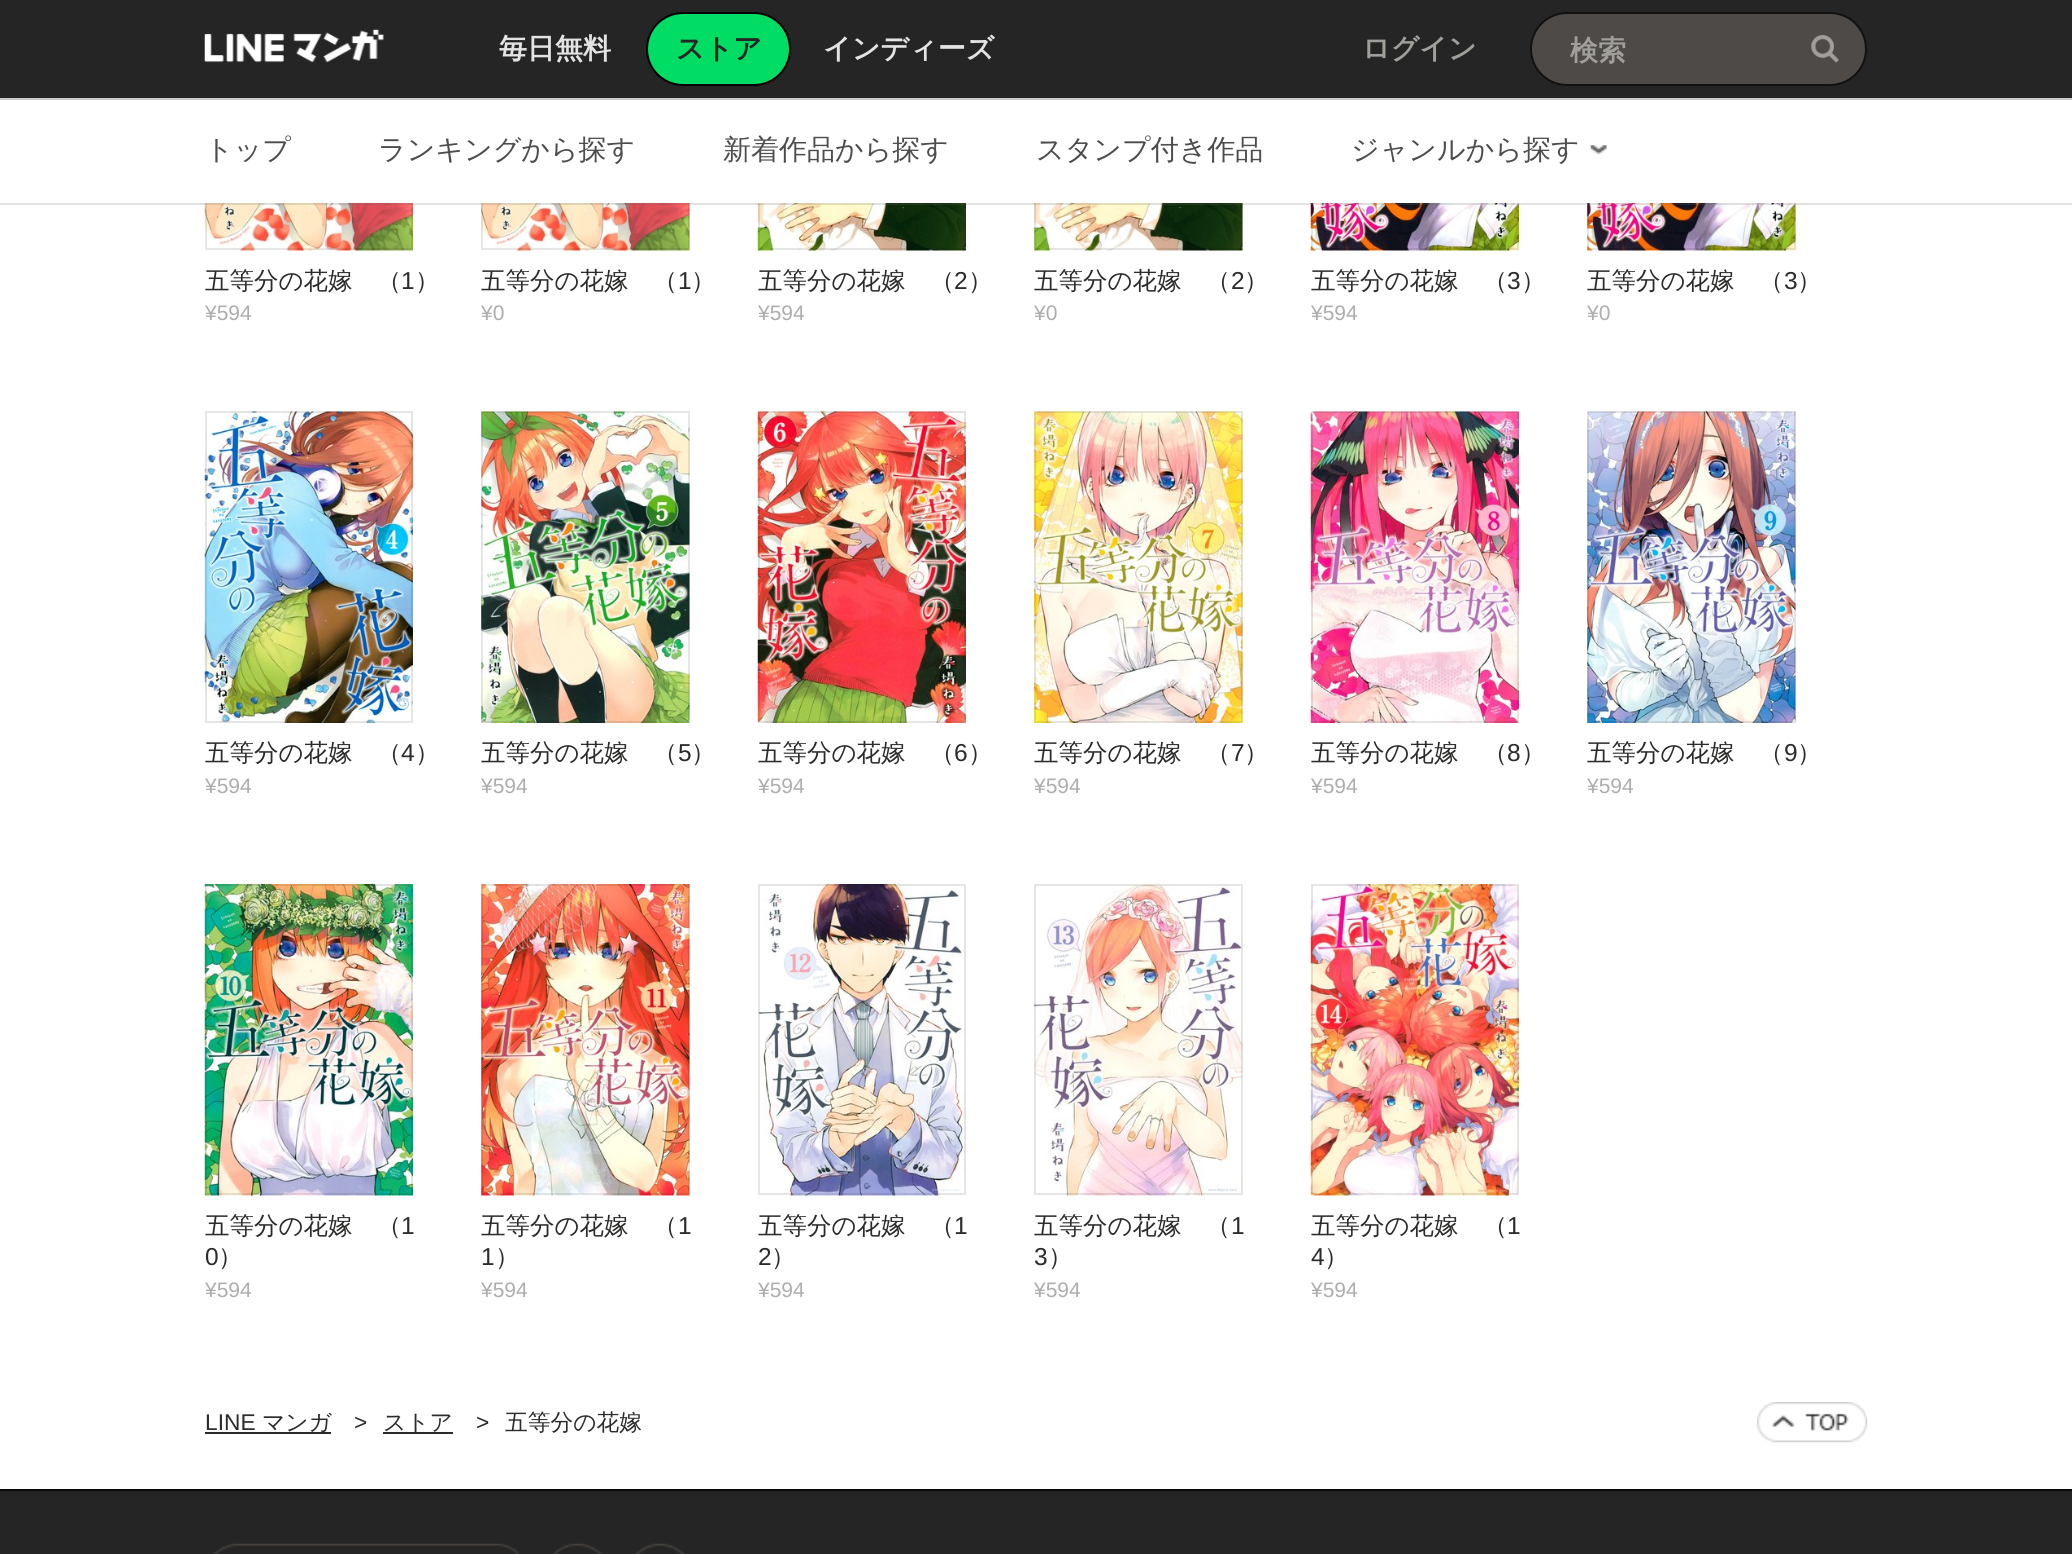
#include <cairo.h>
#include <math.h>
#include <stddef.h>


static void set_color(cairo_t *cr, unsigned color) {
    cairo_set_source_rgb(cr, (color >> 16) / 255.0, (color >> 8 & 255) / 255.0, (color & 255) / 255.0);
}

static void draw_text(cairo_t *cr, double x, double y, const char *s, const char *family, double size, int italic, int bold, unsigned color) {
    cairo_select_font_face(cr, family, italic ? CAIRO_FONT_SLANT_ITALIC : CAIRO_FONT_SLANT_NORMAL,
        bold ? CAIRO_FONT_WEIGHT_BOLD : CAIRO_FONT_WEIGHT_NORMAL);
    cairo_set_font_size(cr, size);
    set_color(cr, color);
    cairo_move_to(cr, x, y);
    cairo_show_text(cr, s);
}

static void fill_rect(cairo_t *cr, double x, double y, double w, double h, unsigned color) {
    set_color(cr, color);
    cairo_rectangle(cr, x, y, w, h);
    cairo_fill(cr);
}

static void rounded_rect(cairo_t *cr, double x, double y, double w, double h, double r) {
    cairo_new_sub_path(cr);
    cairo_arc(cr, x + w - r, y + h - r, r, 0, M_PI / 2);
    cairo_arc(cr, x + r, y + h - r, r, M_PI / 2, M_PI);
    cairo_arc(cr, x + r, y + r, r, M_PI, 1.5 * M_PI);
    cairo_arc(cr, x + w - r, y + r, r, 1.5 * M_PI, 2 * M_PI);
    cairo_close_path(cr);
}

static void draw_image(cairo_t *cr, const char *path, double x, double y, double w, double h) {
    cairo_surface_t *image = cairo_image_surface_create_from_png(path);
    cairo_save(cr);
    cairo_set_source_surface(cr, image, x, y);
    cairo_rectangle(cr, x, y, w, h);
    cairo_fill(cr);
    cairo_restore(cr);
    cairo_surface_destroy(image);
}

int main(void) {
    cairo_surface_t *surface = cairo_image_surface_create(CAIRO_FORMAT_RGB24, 2072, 1554);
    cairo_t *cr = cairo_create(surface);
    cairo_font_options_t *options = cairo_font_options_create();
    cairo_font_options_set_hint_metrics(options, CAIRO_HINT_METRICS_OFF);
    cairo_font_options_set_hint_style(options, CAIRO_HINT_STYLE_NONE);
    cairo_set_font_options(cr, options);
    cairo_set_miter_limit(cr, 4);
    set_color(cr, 0xFFFFFF);
    cairo_paint(cr);
    draw_image(cr, "assets/img4.png", 204, 203, 209, 48);
    cairo_rectangle(cr, 206, -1, 206, 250);
    cairo_set_source_rgba(cr, 0, 0, 0, 0.1);
    cairo_stroke(cr);
    draw_image(cr, "assets/img5.png", 481, 203, 209, 48);
    cairo_rectangle(cr, 482, -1, 207, 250);
    cairo_stroke(cr);
    draw_image(cr, "assets/img6.png", 757, 203, 209, 48);
    cairo_rectangle(cr, 759, -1, 206, 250);
    cairo_stroke(cr);
    draw_image(cr, "assets/img7.png", 1034, 203, 209, 48);
    cairo_rectangle(cr, 1035, -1, 207, 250);
    cairo_stroke(cr);
    draw_image(cr, "assets/img8.png", 1310, 203, 209, 48);
    cairo_rectangle(cr, 1312, -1, 206, 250);
    cairo_stroke(cr);
    draw_image(cr, "assets/img9.png", 1587, 203, 209, 48);
    cairo_rectangle(cr, 1588, -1, 207, 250);
    cairo_stroke(cr);
    fill_rect(cr, 0, 0, 2072, 98, 0x262525);
    draw_image(cr, "assets/img1.png", 204, 29, 180, 34);
    draw_text(cr, 499, 58, "毎日無料", "WenQuanYi Zen Hei", 28, 0, 1, 0xE3E3E3);
    set_color(cr, 0x00DC64);
    rounded_rect(cr, 647, 13, 143, 72, 36);
    cairo_fill_preserve(cr);
    set_color(cr, 0x000000);
    cairo_stroke(cr);
    draw_text(cr, 676, 58, "ストア", "WenQuanYi Zen Hei", 28, 0, 1, 0x262525);
    draw_text(cr, 823, 58, "インディーズ", "WenQuanYi Zen Hei", 28, 0, 1, 0xE3E3E3);
    draw_text(cr, 1362, 58, "ログイン", "WenQuanYi Zen Hei", 28, 0, 1, 0xA19F9A);
    set_color(cr, 0x4D4A48);
    rounded_rect(cr, 1531, 13, 335, 72, 36);
    cairo_fill_preserve(cr);
    set_color(cr, 0x121111);
    cairo_stroke(cr);
    draw_text(cr, 1570, 60, "検索", "WenQuanYi Zen Hei", 28, 0, 1, 0xA19F9A);
    draw_image(cr, "assets/img2.png", 1811, 35, 28, 28);
    fill_rect(cr, 0, 98, 2072, 2, 0xCCCCCC);
    fill_rect(cr, 205, 100, 1591, 103, 0xFFFFFF);
    draw_text(cr, 205, 159, "トップ", "WenQuanYi Zen Hei Medium", 28, 0, 0, 0x4D4D4D);
    draw_text(cr, 378, 159, "ランキングから探す", "WenQuanYi Zen Hei Medium", 28, 0, 0, 0x4D4D4D);
    draw_text(cr, 723, 159, "新着作品から探す", "WenQuanYi Zen Hei Medium", 28, 0, 0, 0x4D4D4D);
    draw_text(cr, 1036, 159, "スタンプ付き作品", "WenQuanYi Zen Hei Medium", 28, 0, 0, 0x4D4D4D);
    draw_text(cr, 1351, 159, "ジャンルから探す", "WenQuanYi Zen Hei Medium", 28, 0, 0, 0x4D4D4D);
    draw_image(cr, "assets/img3.png", 1590, 145, 17, 9);
    cairo_set_source_rgba(cr, 0.435, 0.42, 0.42, 0.2);
    cairo_rectangle(cr, 0, 203, 2072, 2);
    cairo_fill(cr);
    draw_text(cr, 205, 289, "五等分の花嫁　（", "WenQuanYi Zen Hei Medium", 24.5, 0, 0, 0x2B2B2A);
    draw_text(cr, 401, 289, "1", "Liberation Sans", 24.5, 0, 0, 0x2B2B2A);
    draw_text(cr, 415, 289, "）", "WenQuanYi Zen Hei Medium", 24.5, 0, 0, 0x2B2B2A);
    draw_text(cr, 205, 320, "¥594", "Liberation Sans", 21, 0, 0, 0xACADAE);
    draw_text(cr, 481, 289, "五等分の花嫁　（", "WenQuanYi Zen Hei Medium", 24.5, 0, 0, 0x2B2B2A);
    draw_text(cr, 678, 289, "1", "Liberation Sans", 24.5, 0, 0, 0x2B2B2A);
    draw_text(cr, 691, 289, "）", "WenQuanYi Zen Hei Medium", 24.5, 0, 0, 0x2B2B2A);
    draw_text(cr, 481, 320, "¥0", "Liberation Sans", 21, 0, 0, 0xACADAE);
    draw_text(cr, 758, 289, "五等分の花嫁　（", "WenQuanYi Zen Hei Medium", 24.5, 0, 0, 0x2B2B2A);
    draw_text(cr, 954, 289, "2", "Liberation Sans", 24.5, 0, 0, 0x2B2B2A);
    draw_text(cr, 968, 289, "）", "WenQuanYi Zen Hei Medium", 24.5, 0, 0, 0x2B2B2A);
    draw_text(cr, 758, 320, "¥594", "Liberation Sans", 21, 0, 0, 0xACADAE);
    draw_text(cr, 1034, 289, "五等分の花嫁　（", "WenQuanYi Zen Hei Medium", 24.5, 0, 0, 0x2B2B2A);
    draw_text(cr, 1231, 289, "2", "Liberation Sans", 24.5, 0, 0, 0x2B2B2A);
    draw_text(cr, 1244, 289, "）", "WenQuanYi Zen Hei Medium", 24.5, 0, 0, 0x2B2B2A);
    draw_text(cr, 1034, 320, "¥0", "Liberation Sans", 21, 0, 0, 0xACADAE);
    draw_text(cr, 1311, 289, "五等分の花嫁　（", "WenQuanYi Zen Hei Medium", 24.5, 0, 0, 0x2B2B2A);
    draw_text(cr, 1507, 289, "3", "Liberation Sans", 24.5, 0, 0, 0x2B2B2A);
    draw_text(cr, 1521, 289, "）", "WenQuanYi Zen Hei Medium", 24.5, 0, 0, 0x2B2B2A);
    draw_text(cr, 1311, 320, "¥594", "Liberation Sans", 21, 0, 0, 0xACADAE);
    draw_text(cr, 1587, 289, "五等分の花嫁　（", "WenQuanYi Zen Hei Medium", 24.5, 0, 0, 0x2B2B2A);
    draw_text(cr, 1784, 289, "3", "Liberation Sans", 24.5, 0, 0, 0x2B2B2A);
    draw_text(cr, 1797, 289, "）", "WenQuanYi Zen Hei Medium", 24.5, 0, 0, 0x2B2B2A);
    draw_text(cr, 1587, 320, "¥0", "Liberation Sans", 21, 0, 0, 0xACADAE);
    draw_image(cr, "assets/img10.png", 204, 411, 209, 312);
    cairo_rectangle(cr, 206, 412, 206, 310);
    cairo_set_source_rgba(cr, 0, 0, 0, 0.1);
    cairo_stroke(cr);
    draw_text(cr, 205, 761, "五等分の花嫁　（", "WenQuanYi Zen Hei Medium", 24.5, 0, 0, 0x2B2B2A);
    draw_text(cr, 401, 761, "4", "Liberation Sans", 24.5, 0, 0, 0x2B2B2A);
    draw_text(cr, 415, 761, "）", "WenQuanYi Zen Hei Medium", 24.5, 0, 0, 0x2B2B2A);
    draw_text(cr, 205, 793, "¥594", "Liberation Sans", 21, 0, 0, 0xACADAE);
    draw_image(cr, "assets/img11.png", 481, 411, 209, 312);
    cairo_rectangle(cr, 482, 412, 207, 310);
    cairo_set_source_rgba(cr, 0, 0, 0, 0.1);
    cairo_stroke(cr);
    draw_text(cr, 481, 761, "五等分の花嫁　（", "WenQuanYi Zen Hei Medium", 24.5, 0, 0, 0x2B2B2A);
    draw_text(cr, 678, 761, "5", "Liberation Sans", 24.5, 0, 0, 0x2B2B2A);
    draw_text(cr, 691, 761, "）", "WenQuanYi Zen Hei Medium", 24.5, 0, 0, 0x2B2B2A);
    draw_text(cr, 481, 793, "¥594", "Liberation Sans", 21, 0, 0, 0xACADAE);
    draw_image(cr, "assets/img12.png", 757, 411, 209, 312);
    cairo_rectangle(cr, 759, 412, 206, 310);
    cairo_set_source_rgba(cr, 0, 0, 0, 0.1);
    cairo_stroke(cr);
    draw_text(cr, 758, 761, "五等分の花嫁　（", "WenQuanYi Zen Hei Medium", 24.5, 0, 0, 0x2B2B2A);
    draw_text(cr, 954, 761, "6", "Liberation Sans", 24.5, 0, 0, 0x2B2B2A);
    draw_text(cr, 968, 761, "）", "WenQuanYi Zen Hei Medium", 24.5, 0, 0, 0x2B2B2A);
    draw_text(cr, 758, 793, "¥594", "Liberation Sans", 21, 0, 0, 0xACADAE);
    draw_image(cr, "assets/img13.png", 1034, 411, 209, 312);
    cairo_rectangle(cr, 1035, 412, 207, 310);
    cairo_set_source_rgba(cr, 0, 0, 0, 0.1);
    cairo_stroke(cr);
    draw_text(cr, 1034, 761, "五等分の花嫁　（", "WenQuanYi Zen Hei Medium", 24.5, 0, 0, 0x2B2B2A);
    draw_text(cr, 1231, 761, "7", "Liberation Sans", 24.5, 0, 0, 0x2B2B2A);
    draw_text(cr, 1244, 761, "）", "WenQuanYi Zen Hei Medium", 24.5, 0, 0, 0x2B2B2A);
    draw_text(cr, 1034, 793, "¥594", "Liberation Sans", 21, 0, 0, 0xACADAE);
    draw_image(cr, "assets/img14.png", 1310, 411, 209, 312);
    cairo_rectangle(cr, 1312, 412, 206, 310);
    cairo_set_source_rgba(cr, 0, 0, 0, 0.1);
    cairo_stroke(cr);
    draw_text(cr, 1311, 761, "五等分の花嫁　（", "WenQuanYi Zen Hei Medium", 24.5, 0, 0, 0x2B2B2A);
    draw_text(cr, 1507, 761, "8", "Liberation Sans", 24.5, 0, 0, 0x2B2B2A);
    draw_text(cr, 1521, 761, "）", "WenQuanYi Zen Hei Medium", 24.5, 0, 0, 0x2B2B2A);
    draw_text(cr, 1311, 793, "¥594", "Liberation Sans", 21, 0, 0, 0xACADAE);
    draw_image(cr, "assets/img15.png", 1587, 411, 209, 312);
    cairo_rectangle(cr, 1588, 412, 207, 310);
    cairo_set_source_rgba(cr, 0, 0, 0, 0.1);
    cairo_stroke(cr);
    draw_text(cr, 1587, 761, "五等分の花嫁　（", "WenQuanYi Zen Hei Medium", 24.5, 0, 0, 0x2B2B2A);
    draw_text(cr, 1784, 761, "9", "Liberation Sans", 24.5, 0, 0, 0x2B2B2A);
    draw_text(cr, 1797, 761, "）", "WenQuanYi Zen Hei Medium", 24.5, 0, 0, 0x2B2B2A);
    draw_text(cr, 1587, 793, "¥594", "Liberation Sans", 21, 0, 0, 0xACADAE);
    draw_image(cr, "assets/img16.png", 204, 884, 209, 312);
    cairo_rectangle(cr, 206, 885, 206, 309);
    cairo_set_source_rgba(cr, 0, 0, 0, 0.1);
    cairo_stroke(cr);
    draw_text(cr, 205, 1234, "五等分の花嫁　（", "WenQuanYi Zen Hei Medium", 24.5, 0, 0, 0x2B2B2A);
    draw_text(cr, 401, 1234, "1", "Liberation Sans", 24.5, 0, 0, 0x2B2B2A);
    draw_text(cr, 205, 1265, "0", "Liberation Sans", 24.5, 0, 0, 0x2B2B2A);
    draw_text(cr, 218, 1265, "）", "WenQuanYi Zen Hei Medium", 24.5, 0, 0, 0x2B2B2A);
    draw_text(cr, 205, 1297, "¥594", "Liberation Sans", 21, 0, 0, 0xACADAE);
    draw_image(cr, "assets/img17.png", 481, 884, 209, 312);
    cairo_rectangle(cr, 482, 885, 207, 309);
    cairo_set_source_rgba(cr, 0, 0, 0, 0.1);
    cairo_stroke(cr);
    draw_text(cr, 481, 1234, "五等分の花嫁　（", "WenQuanYi Zen Hei Medium", 24.5, 0, 0, 0x2B2B2A);
    draw_text(cr, 678, 1234, "1", "Liberation Sans", 24.5, 0, 0, 0x2B2B2A);
    draw_text(cr, 481, 1265, "1", "Liberation Sans", 24.5, 0, 0, 0x2B2B2A);
    draw_text(cr, 495, 1265, "）", "WenQuanYi Zen Hei Medium", 24.5, 0, 0, 0x2B2B2A);
    draw_text(cr, 481, 1297, "¥594", "Liberation Sans", 21, 0, 0, 0xACADAE);
    draw_image(cr, "assets/img18.png", 758, 884, 208, 312);
    cairo_rectangle(cr, 759, 885, 206, 309);
    cairo_set_source_rgba(cr, 0, 0, 0, 0.1);
    cairo_stroke(cr);
    draw_text(cr, 758, 1234, "五等分の花嫁　（", "WenQuanYi Zen Hei Medium", 24.5, 0, 0, 0x2B2B2A);
    draw_text(cr, 954, 1234, "1", "Liberation Sans", 24.5, 0, 0, 0x2B2B2A);
    draw_text(cr, 758, 1265, "2", "Liberation Sans", 24.5, 0, 0, 0x2B2B2A);
    draw_text(cr, 771, 1265, "）", "WenQuanYi Zen Hei Medium", 24.5, 0, 0, 0x2B2B2A);
    draw_text(cr, 758, 1297, "¥594", "Liberation Sans", 21, 0, 0, 0xACADAE);
    draw_image(cr, "assets/img19.png", 1034, 884, 209, 312);
    cairo_rectangle(cr, 1035, 885, 207, 309);
    cairo_set_source_rgba(cr, 0, 0, 0, 0.1);
    cairo_stroke(cr);
    draw_text(cr, 1034, 1234, "五等分の花嫁　（", "WenQuanYi Zen Hei Medium", 24.5, 0, 0, 0x2B2B2A);
    draw_text(cr, 1231, 1234, "1", "Liberation Sans", 24.5, 0, 0, 0x2B2B2A);
    draw_text(cr, 1034, 1265, "3", "Liberation Sans", 24.5, 0, 0, 0x2B2B2A);
    draw_text(cr, 1048, 1265, "）", "WenQuanYi Zen Hei Medium", 24.5, 0, 0, 0x2B2B2A);
    draw_text(cr, 1034, 1297, "¥594", "Liberation Sans", 21, 0, 0, 0xACADAE);
    draw_image(cr, "assets/img20.png", 1310, 884, 209, 312);
    cairo_rectangle(cr, 1312, 885, 206, 309);
    cairo_set_source_rgba(cr, 0, 0, 0, 0.1);
    cairo_stroke(cr);
    draw_text(cr, 1311, 1234, "五等分の花嫁　（", "WenQuanYi Zen Hei Medium", 24.5, 0, 0, 0x2B2B2A);
    draw_text(cr, 1507, 1234, "1", "Liberation Sans", 24.5, 0, 0, 0x2B2B2A);
    draw_text(cr, 1311, 1265, "4", "Liberation Sans", 24.5, 0, 0, 0x2B2B2A);
    draw_text(cr, 1324, 1265, "）", "WenQuanYi Zen Hei Medium", 24.5, 0, 0, 0x2B2B2A);
    draw_text(cr, 1311, 1297, "¥594", "Liberation Sans", 21, 0, 0, 0xACADAE);
    draw_text(cr, 205, 1430, "LINE", "Liberation Sans", 22.75, 0, 0, 0x2B2B2A);
    fill_rect(cr, 205, 1432, 126, 2, 0x2B2B2A);
    draw_text(cr, 262, 1430, "マンガ", "WenQuanYi Zen Hei Medium", 22.75, 0, 0, 0x2B2B2A);
    draw_text(cr, 354, 1430, ">", "Liberation Sans", 22.75, 0, 0, 0x2B2B2A);
    fill_rect(cr, 383, 1432, 70, 2, 0x2B2B2A);
    draw_text(cr, 383, 1430, "ストア", "WenQuanYi Zen Hei Medium", 22.75, 0, 0, 0x2B2B2A);
    draw_text(cr, 476, 1430, ">", "Liberation Sans", 22.75, 0, 0, 0x2B2B2A);
    draw_text(cr, 505, 1430, "五等分の花嫁", "WenQuanYi Zen Hei Medium", 22.75, 0, 0, 0x2B2B2A);
    draw_image(cr, "assets/img21.png", 1757, 1402, 111, 41);
    fill_rect(cr, 0, 1491, 2072, 63, 0x262525);
    fill_rect(cr, 0, 1489, 2072, 2, 0x0B0A0A);
    draw_image(cr, "assets/img22.png", 213, 1543, 307, 11);
    draw_image(cr, "assets/img23.png", 553, 1543, 50, 11);
    draw_image(cr, "assets/img24.png", 635, 1543, 50, 11);
    cairo_surface_write_to_png(surface, "output.png");
    cairo_font_options_destroy(options);
    cairo_destroy(cr);
    cairo_surface_destroy(surface);
    return 0;
}
